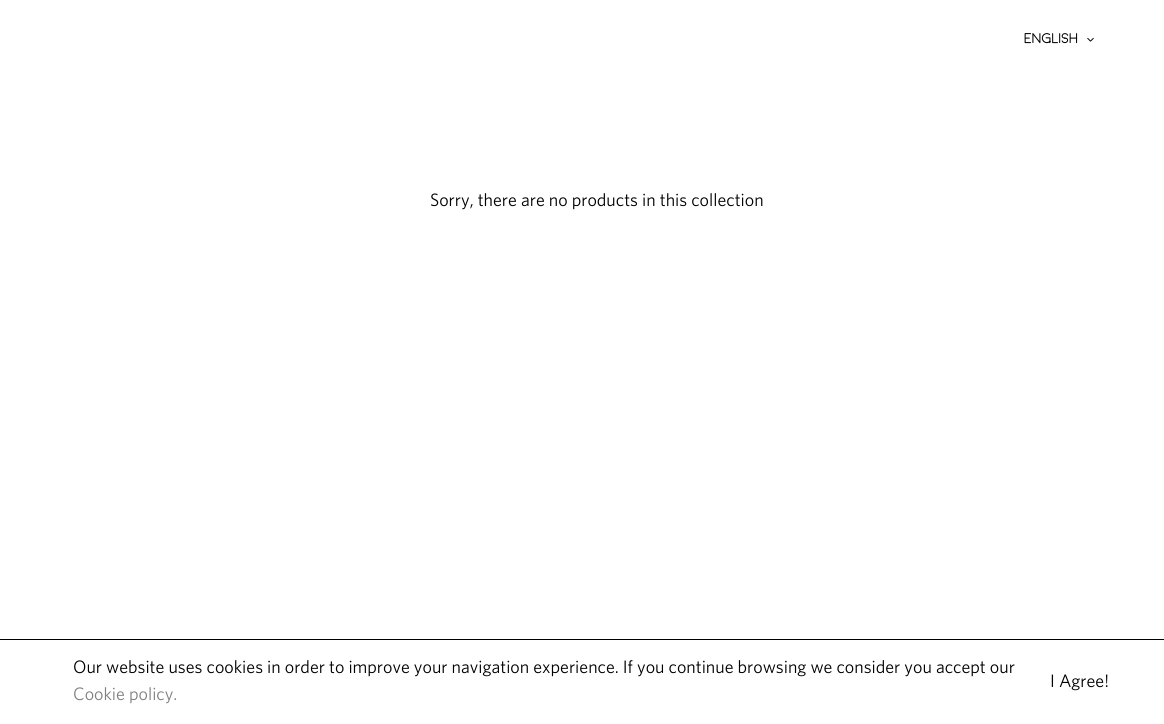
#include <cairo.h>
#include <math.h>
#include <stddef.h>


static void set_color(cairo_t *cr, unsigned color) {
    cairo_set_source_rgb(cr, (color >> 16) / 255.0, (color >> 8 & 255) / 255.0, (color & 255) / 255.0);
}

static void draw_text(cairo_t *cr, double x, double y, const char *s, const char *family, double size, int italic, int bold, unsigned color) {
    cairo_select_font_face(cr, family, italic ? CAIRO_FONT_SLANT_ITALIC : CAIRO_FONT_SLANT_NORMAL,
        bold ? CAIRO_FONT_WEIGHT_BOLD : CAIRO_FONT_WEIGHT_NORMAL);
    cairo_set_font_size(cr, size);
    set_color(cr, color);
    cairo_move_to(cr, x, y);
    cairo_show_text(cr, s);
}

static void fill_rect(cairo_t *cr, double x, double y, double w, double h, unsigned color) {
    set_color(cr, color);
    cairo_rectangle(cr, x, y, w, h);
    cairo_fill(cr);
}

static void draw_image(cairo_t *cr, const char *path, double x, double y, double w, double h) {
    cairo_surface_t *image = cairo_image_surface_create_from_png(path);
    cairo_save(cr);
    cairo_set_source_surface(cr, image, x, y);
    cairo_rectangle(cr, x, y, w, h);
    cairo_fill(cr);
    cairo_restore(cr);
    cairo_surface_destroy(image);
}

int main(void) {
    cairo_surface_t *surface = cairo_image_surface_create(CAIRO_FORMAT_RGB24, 1164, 724);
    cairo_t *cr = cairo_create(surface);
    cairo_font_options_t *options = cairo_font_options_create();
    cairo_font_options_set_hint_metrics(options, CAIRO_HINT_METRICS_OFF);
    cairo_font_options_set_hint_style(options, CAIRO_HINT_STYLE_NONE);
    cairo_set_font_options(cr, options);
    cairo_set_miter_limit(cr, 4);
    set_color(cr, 0xFFFFFF);
    cairo_paint(cr);
    draw_text(cr, 1024, 43, "ENGLISH", "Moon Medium", 14, 0, 0, 0x000000);
    draw_image(cr, "assets/img1.png", 1087, 37, 7, 5);
    draw_text(cr, 430, 206, "Sorry, there are no products in this collection", "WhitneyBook", 18, 0, 0, 0x000000);
    fill_rect(cr, 0, 639, 1164, 1, 0x000000);
    draw_text(cr, 73, 673, "Our website uses cookies in order to improve your navigation experience. If you continue browsing we consider you accept our", "WhitneyBook", 18, 0, 0, 0x000000);
    draw_text(cr, 73, 700, "Cookie policy.", "WhitneyBook", 18, 0, 0, 0x808080);
    draw_text(cr, 1050, 687, "I Agree!", "WhitneyBook", 18, 0, 0, 0x000000);
    cairo_surface_write_to_png(surface, "output.png");
    cairo_font_options_destroy(options);
    cairo_destroy(cr);
    cairo_surface_destroy(surface);
    return 0;
}
